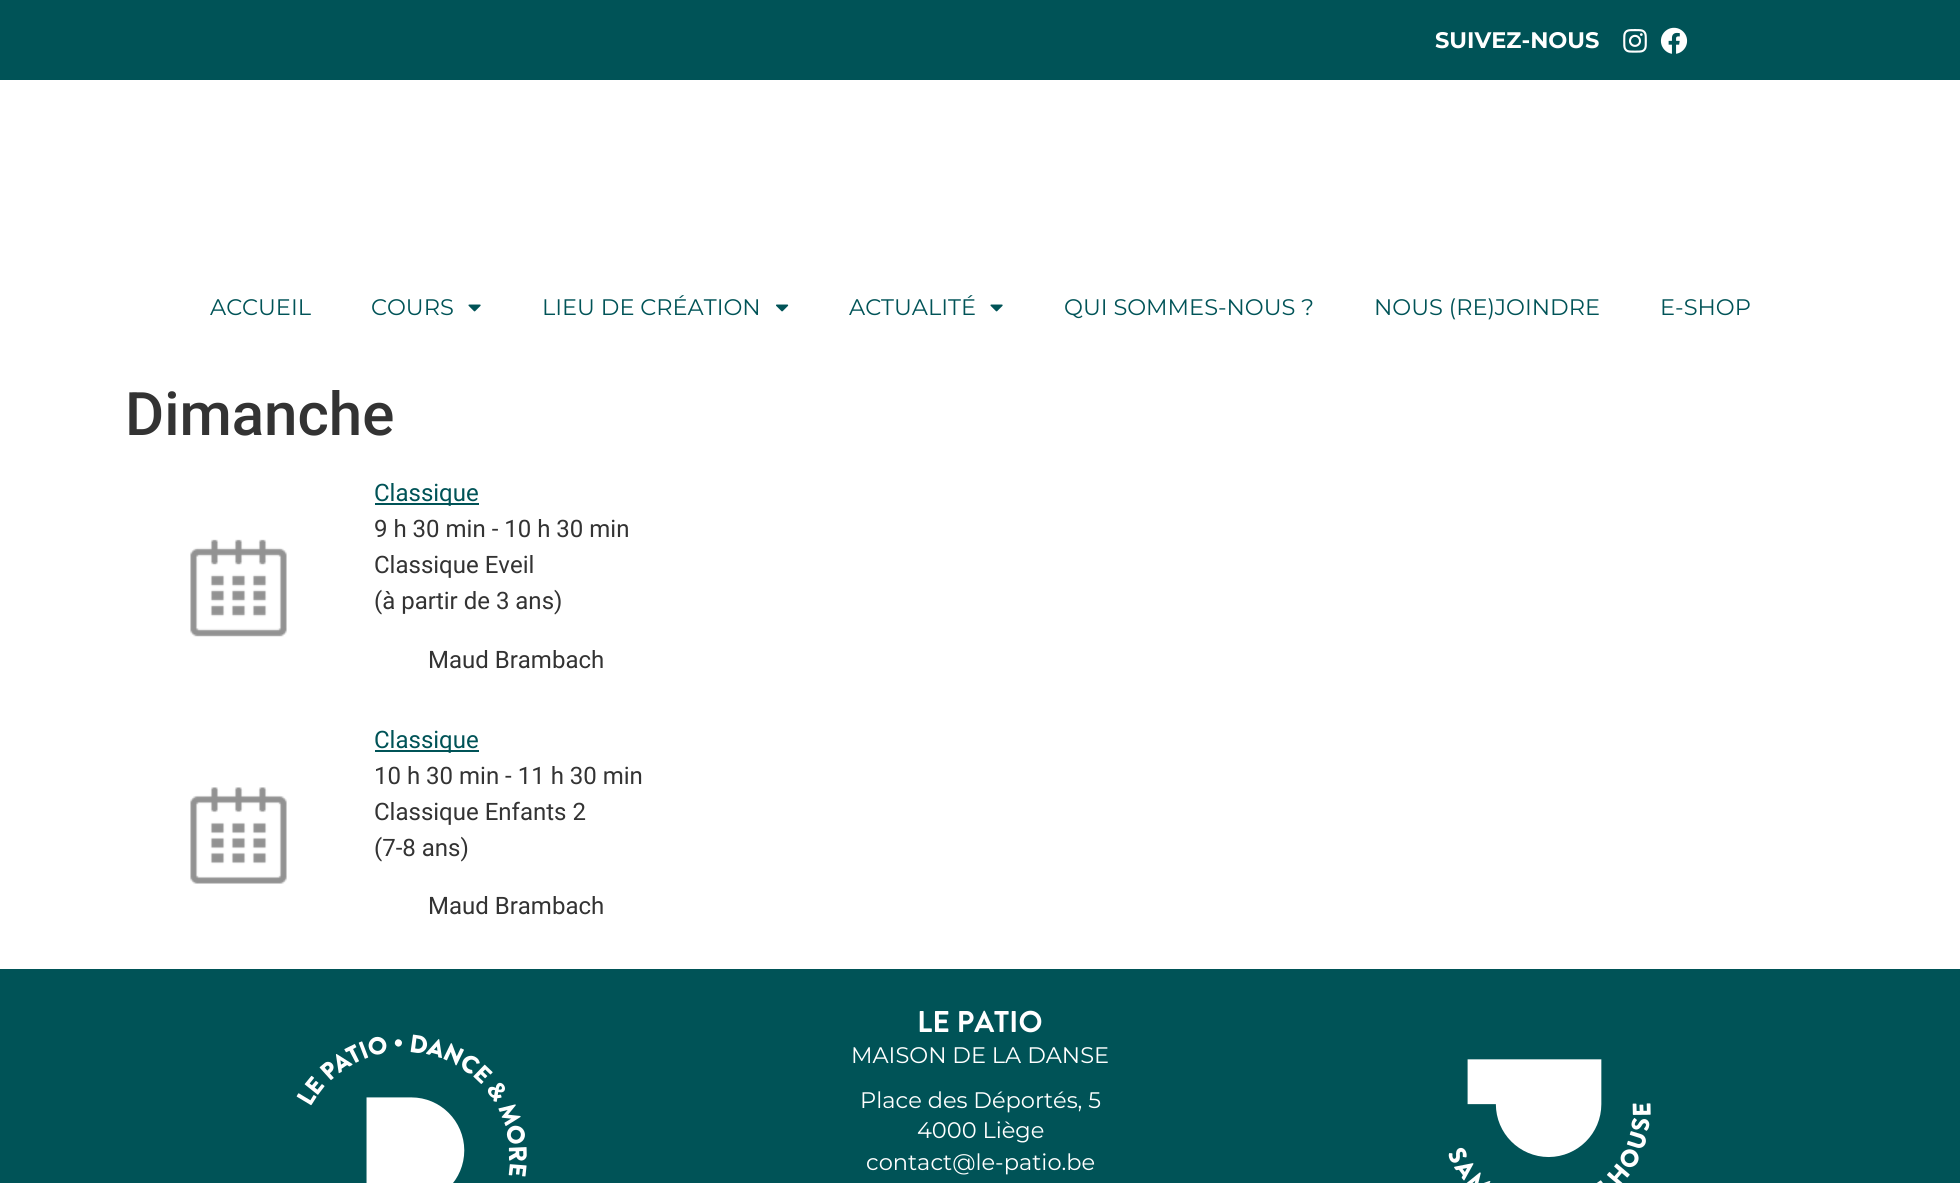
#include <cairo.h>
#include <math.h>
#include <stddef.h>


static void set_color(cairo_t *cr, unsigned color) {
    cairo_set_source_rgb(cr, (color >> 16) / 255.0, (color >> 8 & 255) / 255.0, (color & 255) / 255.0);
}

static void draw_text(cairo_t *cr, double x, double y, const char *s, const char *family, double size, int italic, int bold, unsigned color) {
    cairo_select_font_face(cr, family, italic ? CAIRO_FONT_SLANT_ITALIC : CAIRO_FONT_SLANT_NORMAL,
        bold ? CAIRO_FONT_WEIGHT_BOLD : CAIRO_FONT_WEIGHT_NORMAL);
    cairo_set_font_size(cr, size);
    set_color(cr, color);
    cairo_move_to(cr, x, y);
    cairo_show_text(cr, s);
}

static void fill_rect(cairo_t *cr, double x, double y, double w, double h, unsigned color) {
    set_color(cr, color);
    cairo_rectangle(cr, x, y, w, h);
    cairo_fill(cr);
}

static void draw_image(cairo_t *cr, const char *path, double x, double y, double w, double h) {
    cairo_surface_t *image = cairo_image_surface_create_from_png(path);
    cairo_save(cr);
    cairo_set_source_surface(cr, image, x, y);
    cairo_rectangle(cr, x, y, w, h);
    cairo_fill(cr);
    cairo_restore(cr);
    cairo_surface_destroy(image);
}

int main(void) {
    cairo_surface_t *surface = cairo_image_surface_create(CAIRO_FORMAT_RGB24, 1960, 1183);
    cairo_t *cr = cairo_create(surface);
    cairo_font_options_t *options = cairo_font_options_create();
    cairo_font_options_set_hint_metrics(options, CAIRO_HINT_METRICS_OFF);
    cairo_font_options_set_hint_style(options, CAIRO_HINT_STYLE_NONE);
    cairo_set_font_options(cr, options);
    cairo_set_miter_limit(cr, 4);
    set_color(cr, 0xFFFFFF);
    cairo_paint(cr);
    fill_rect(cr, 0, 0, 1960, 80, 0x005357);
    draw_text(cr, 1435, 48, "SUIVEZ-NOUS", "Montserrat", 22.5, 0, 1, 0xFFFFFF);
    draw_image(cr, "assets/img1.png", 1623, 29, 24, 24);
    draw_image(cr, "assets/img2.png", 1660, 27, 28, 27);
    draw_text(cr, 210, 315, "ACCUEIL", "Montserrat", 22.5, 0, 0, 0x005357);
    draw_text(cr, 371, 315, "COURS", "Montserrat", 22.5, 0, 0, 0x005357);
    draw_image(cr, "assets/img3.png", 468, 304, 13, 8);
    draw_text(cr, 542, 315, "LIEU DE CRÉATION", "Montserrat", 22.5, 0, 0, 0x005357);
    draw_image(cr, "assets/img4.png", 776, 304, 13, 8);
    draw_text(cr, 849, 315, "ACTUALITÉ", "Montserrat", 22.5, 0, 0, 0x005357);
    draw_image(cr, "assets/img3.png", 990, 304, 13, 8);
    draw_text(cr, 1064, 315, "QUI SOMMES-NOUS ?", "Montserrat", 22.5, 0, 0, 0x005357);
    draw_text(cr, 1374, 315, "NOUS (RE)JOINDRE", "Montserrat", 22.5, 0, 0, 0x005357);
    draw_text(cr, 1660, 315, "E-SHOP", "Montserrat", 22.5, 0, 0, 0x005357);
    draw_text(cr, 125, 435, "Dimanche", "Roboto Medium", 60, 0, 0, 0x333333);
    fill_rect(cr, 375, 503, 104, 2, 0x005357);
    draw_text(cr, 374, 501, "Classique", "Roboto", 24, 0, 0, 0x005357);
    draw_text(cr, 374, 537, "9 h 30 min - 10 h 30 min", "Roboto", 24, 0, 0, 0x333333);
    draw_image(cr, "assets/img5.png", 190, 539, 97, 98);
    draw_text(cr, 374, 573, "Classique Eveil", "Roboto", 24, 0, 0, 0x333333);
    draw_text(cr, 374, 609, "(à partir de 3 ans)", "Roboto", 24, 0, 0, 0x333333);
    draw_text(cr, 428, 668, "Maud Brambach", "Roboto", 24, 0, 0, 0x333333);
    fill_rect(cr, 375, 750, 104, 2, 0x005357);
    draw_text(cr, 374, 748, "Classique", "Roboto", 24, 0, 0, 0x005357);
    draw_text(cr, 374, 784, "10 h 30 min - 11 h 30 min", "Roboto", 24, 0, 0, 0x333333);
    draw_image(cr, "assets/img6.png", 190, 787, 97, 97);
    draw_text(cr, 374, 820, "Classique Enfants 2", "Roboto", 24, 0, 0, 0x333333);
    draw_text(cr, 374, 856, "(7-8 ans)", "Roboto", 24, 0, 0, 0x333333);
    draw_text(cr, 428, 914, "Maud Brambach", "Roboto", 24, 0, 0, 0x333333);
    fill_rect(cr, 0, 969, 1960, 214, 0x005357);
    draw_image(cr, "assets/img7.png", 296, 1034, 231, 149);
    draw_text(cr, 917, 1032, "LE PATIO", "Brandon Grotesque", 30, 0, 1, 0xFFFFFF);
    draw_text(cr, 851, 1063, "MAISON DE LA DANSE", "Montserrat", 22.5, 0, 0, 0xFFFFFF);
    draw_text(cr, 860, 1108, "Place des Déportés, 5", "Montserrat", 22.5, 0, 0, 0xFFFFFF);
    draw_text(cr, 917, 1138, "4000 Liège", "Montserrat", 22.5, 0, 0, 0xFFFFFF);
    draw_text(cr, 866, 1170, "contact@le-patio.be", "Montserrat", 22.5, 0, 0, 0xFFFFFF);
    draw_image(cr, "assets/img8.png", 1448, 1059, 203, 124);
    cairo_surface_write_to_png(surface, "output.png");
    cairo_font_options_destroy(options);
    cairo_destroy(cr);
    cairo_surface_destroy(surface);
    return 0;
}
